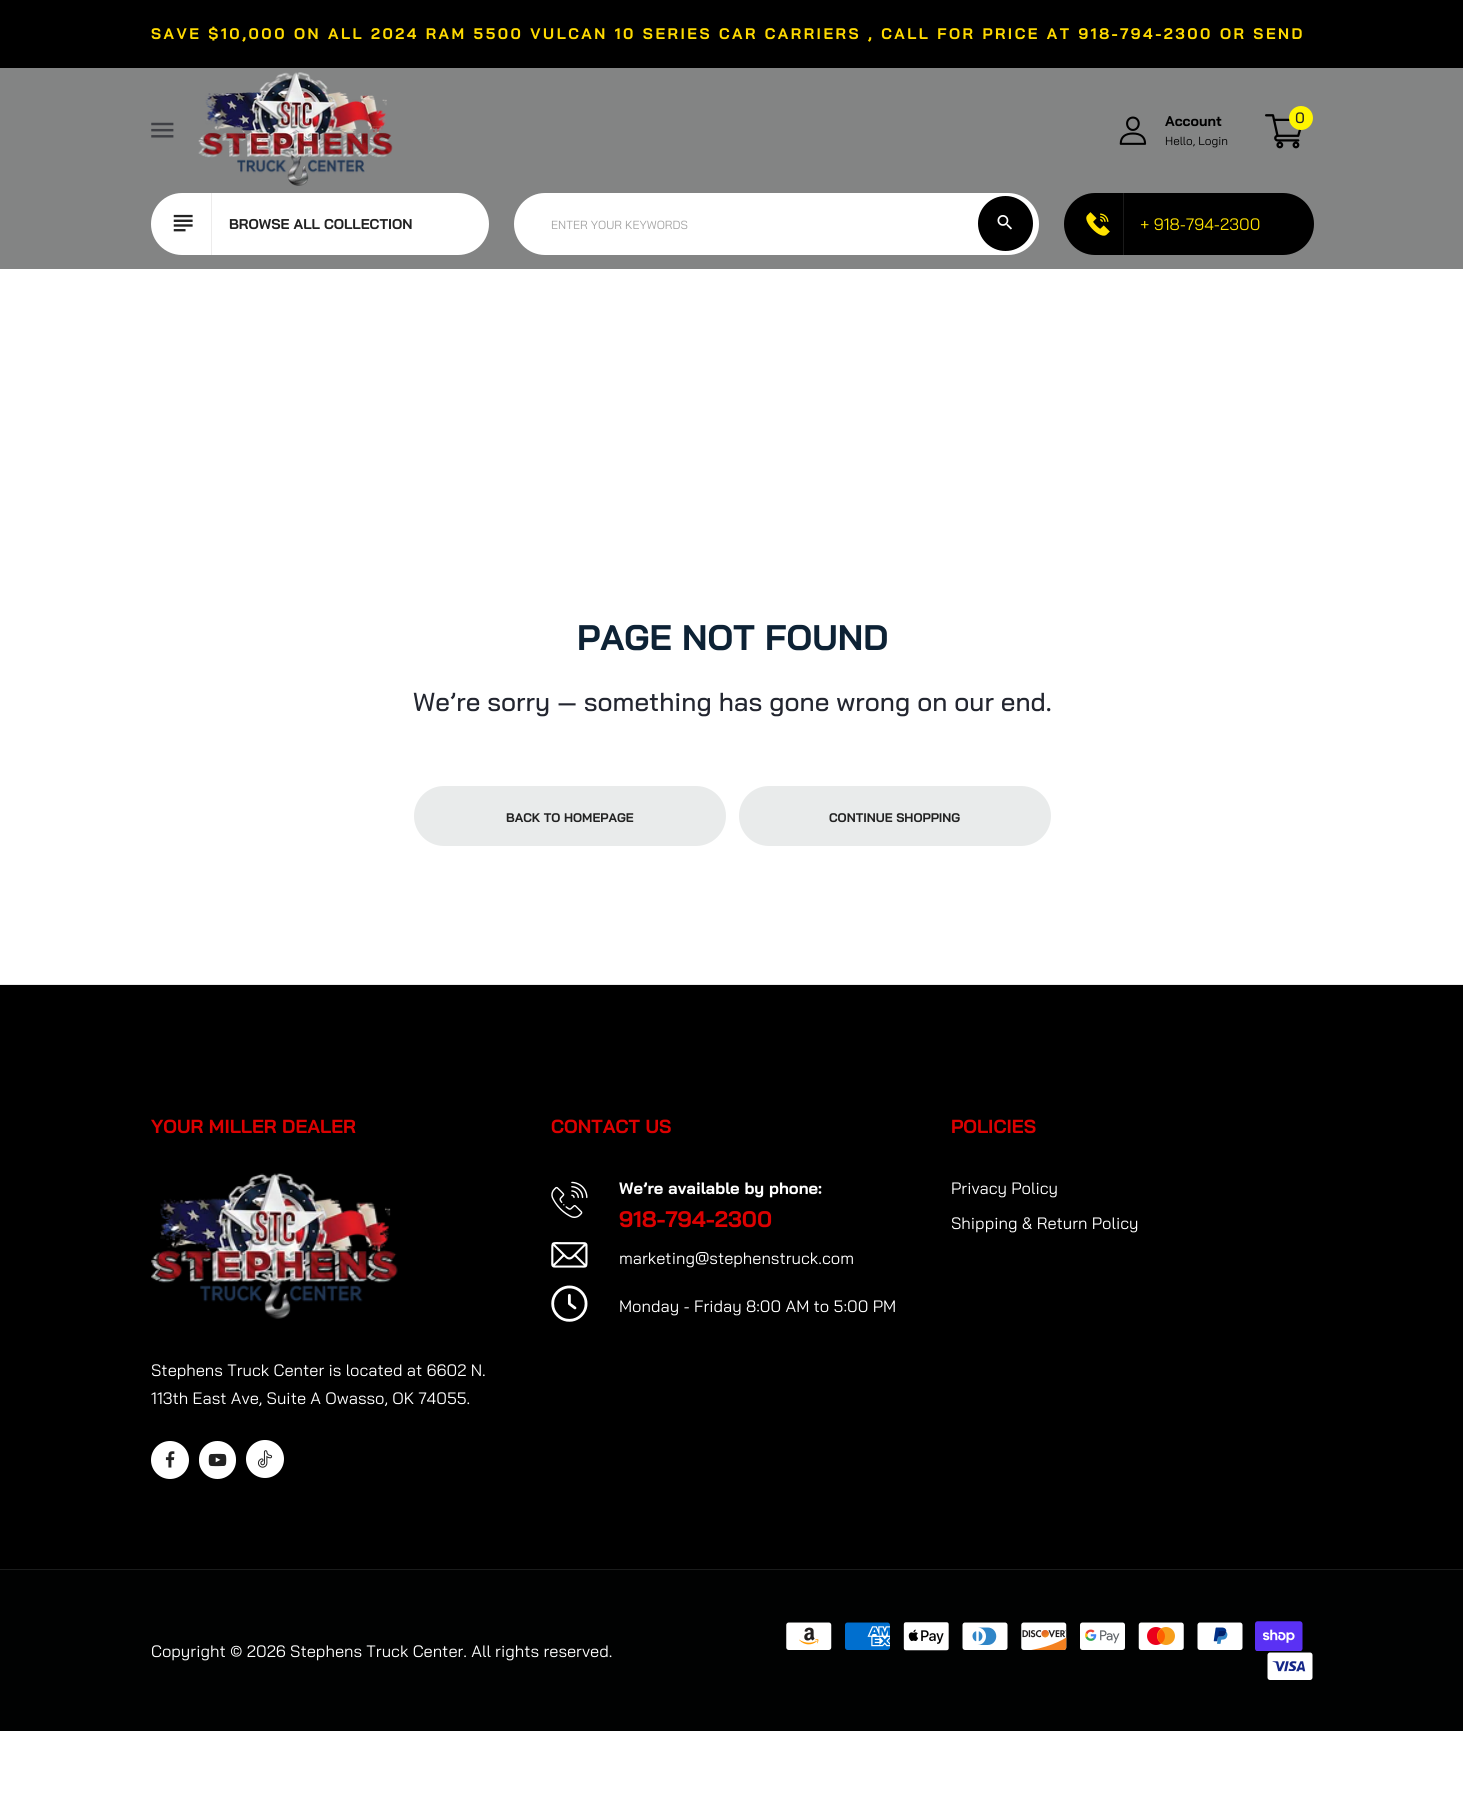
#include <cairo.h>
#include <math.h>
#include <stddef.h>


static void set_color(cairo_t *cr, unsigned color) {
    cairo_set_source_rgb(cr, (color >> 16) / 255.0, (color >> 8 & 255) / 255.0, (color & 255) / 255.0);
}

static void draw_text(cairo_t *cr, double x, double y, const char *s, const char *family, double size, int italic, int bold, unsigned color) {
    cairo_select_font_face(cr, family, italic ? CAIRO_FONT_SLANT_ITALIC : CAIRO_FONT_SLANT_NORMAL,
        bold ? CAIRO_FONT_WEIGHT_BOLD : CAIRO_FONT_WEIGHT_NORMAL);
    cairo_set_font_size(cr, size);
    set_color(cr, color);
    cairo_move_to(cr, x, y);
    cairo_show_text(cr, s);
}

static void draw_spaced(cairo_t *cr, double x, double y, const char *s, double letter, double word) {
    cairo_move_to(cr, x, y);
    while (*s) {
        char ch[5] = {0};
        int n = 0;
        do ch[n++] = *s++; while ((*s & 0xC0) == 0x80);
        cairo_show_text(cr, ch);
        cairo_rel_move_to(cr, letter + word * (*ch == ' '), 0);
    }
}

static void fill_rect(cairo_t *cr, double x, double y, double w, double h, unsigned color) {
    set_color(cr, color);
    cairo_rectangle(cr, x, y, w, h);
    cairo_fill(cr);
}

static void rounded_rect(cairo_t *cr, double x, double y, double w, double h, double r) {
    cairo_new_sub_path(cr);
    cairo_arc(cr, x + w - r, y + h - r, r, 0, M_PI / 2);
    cairo_arc(cr, x + r, y + h - r, r, M_PI / 2, M_PI);
    cairo_arc(cr, x + r, y + r, r, M_PI, 1.5 * M_PI);
    cairo_arc(cr, x + w - r, y + r, r, 1.5 * M_PI, 2 * M_PI);
    cairo_close_path(cr);
}

static void draw_image(cairo_t *cr, const char *path, double x, double y, double w, double h) {
    cairo_surface_t *image = cairo_image_surface_create_from_png(path);
    cairo_save(cr);
    cairo_set_source_surface(cr, image, x, y);
    cairo_rectangle(cr, x, y, w, h);
    cairo_fill(cr);
    cairo_restore(cr);
    cairo_surface_destroy(image);
}

int main(void) {
    cairo_surface_t *surface = cairo_image_surface_create(CAIRO_FORMAT_RGB24, 1463, 1818);
    cairo_t *cr = cairo_create(surface);
    cairo_font_options_t *options = cairo_font_options_create();
    cairo_font_options_set_hint_metrics(options, CAIRO_HINT_METRICS_OFF);
    cairo_font_options_set_hint_style(options, CAIRO_HINT_STYLE_NONE);
    cairo_set_font_options(cr, options);
    cairo_set_miter_limit(cr, 4);
    set_color(cr, 0xFFFFFF);
    cairo_paint(cr);
    fill_rect(cr, 0, 0, 1463, 68, 0x000000);
    cairo_select_font_face(cr, "Bai Jamjuree", CAIRO_FONT_SLANT_NORMAL, CAIRO_FONT_WEIGHT_BOLD);
    cairo_set_font_size(cr, 15.35);
    set_color(cr, 0xFFDA00);
    draw_spaced(cr, 151, 39, "SAVE $10,000 ON ALL 2024 RAM 5500 VULCAN 10 SERIES CAR CARRIERS , CALL FOR PRICE AT 918-794-2300 OR SEND", 2.5, 0);
    fill_rect(cr, 0, 68, 1463, 201, 0x838484);
    draw_image(cr, "assets/img1.png", 151, 122, 23, 16);
    draw_image(cr, "assets/img2.png", 198, 72, 195, 114);
    draw_image(cr, "assets/img3.png", 1119, 116, 28, 29);
    draw_text(cr, 1165, 126, "Account", "Bai Jamjuree", 14.2, 0, 1, 0x000000);
    draw_text(cr, 1165, 145, "Hello, Login", "Bai Jamjuree", 11.75, 0, 0, 0x000000);
    draw_image(cr, "assets/img4.png", 1265, 114, 37, 35);
    set_color(cr, 0xFFF500);
    cairo_arc(cr, 1301, 118, 12, 0, 2 * M_PI);
    cairo_fill(cr);
    draw_text(cr, 1295, 123, "0", "Bai Jamjuree Medium", 15, 0, 0, 0x222222);
    set_color(cr, 0xFFFFFF);
    rounded_rect(cr, 151, 193, 338, 62, 31);
    cairo_fill(cr);
    draw_image(cr, "assets/img5.png", 173, 214, 20, 18);
    fill_rect(cr, 211, 193, 1, 62, 0xEDECEC);
    draw_text(cr, 229, 229, "BROWSE ALL COLLECTION", "Bai Jamjuree", 14.2, 0, 1, 0x222222);
    set_color(cr, 0xFFFFFF);
    rounded_rect(cr, 514, 193, 525, 62, 31);
    cairo_fill(cr);
    draw_text(cr, 551, 229, "ENTER YOUR KEYWORDS", "Bai Jamjuree", 11.75, 0, 0, 0xA1A1A1);
    set_color(cr, 0x000000);
    cairo_new_path(cr);
    cairo_arc(cr, 1005.5, 223.5, 27.5, 0, 2 * M_PI);
    cairo_fill(cr);
    draw_image(cr, "assets/img6.png", 997, 215, 15, 15);
    rounded_rect(cr, 1064, 193, 250, 62, 31);
    cairo_fill(cr);
    draw_image(cr, "assets/img7.png", 1086, 212, 24, 24);
    fill_rect(cr, 1123, 193, 1, 62, 0x1A1A1A);
    draw_text(cr, 1140, 230, "+ 918-794-2300", "Bai Jamjuree", 16.5, 0, 0, 0xFFE200);
    draw_text(cr, 577, 650, "PAGE NOT FOUND", "Bai Jamjuree", 35.5, 0, 1, 0x0D2235);
    draw_text(cr, 413, 711, "We’re sorry — something has gone wrong on our end.", "Bai Jamjuree Medium", 26, 0, 0, 0x232630);
    set_color(cr, 0xE9EBEB);
    rounded_rect(cr, 414, 786, 312, 60, 30);
    cairo_fill(cr);
    draw_text(cr, 506, 822, "BACK TO HOMEPAGE", "Bai Jamjuree", 12.5, 0, 1, 0x222222);
    set_color(cr, 0xE9EBEB);
    rounded_rect(cr, 739, 786, 312, 60, 30);
    cairo_fill(cr);
    draw_text(cr, 829, 822, "CONTINUE SHOPPING", "Bai Jamjuree", 12.5, 0, 1, 0x222222);
    fill_rect(cr, 0, 985, 1463, 584, 0x000000);
    fill_rect(cr, 0, 984, 1463, 1, 0xEAEAEA);
    draw_text(cr, 151, 1133, "YOUR MILLER DEALER", "Bai Jamjuree", 18.9, 0, 1, 0xDB0000);
    draw_image(cr, "assets/img8.png", 151, 1173, 247, 146);
    draw_text(cr, 151, 1376, "Stephens Truck Center is located at 6602 N.", "Bai Jamjuree", 16.5, 0, 0, 0xFFFFFF);
    draw_text(cr, 151, 1404, "113th East Ave, Suite A Owasso, OK 74055.", "Bai Jamjuree", 16.5, 0, 0, 0xFFFFFF);
    cairo_new_path(cr);
    cairo_arc(cr, 170, 1460, 19, 0, 2 * M_PI);
    cairo_fill(cr);
    draw_image(cr, "assets/img9.png", 165, 1451, 10, 17);
    rounded_rect(cr, 199, 1441, 37, 38, 18.5);
    cairo_fill(cr);
    draw_image(cr, "assets/img10.png", 208, 1453, 19, 14);
    cairo_arc(cr, 265, 1459, 19, 0, 2 * M_PI);
    cairo_fill(cr);
    draw_image(cr, "assets/img11.png", 257, 1450, 16, 18);
    draw_text(cr, 551, 1133, "CONTACT US", "Bai Jamjuree", 18.9, 0, 1, 0xDB0000);
    draw_image(cr, "assets/img12.png", 551, 1181, 37, 37);
    draw_text(cr, 619, 1194, "We’re available by phone:", "Bai Jamjuree", 16.5, 0, 1, 0xFFFFFF);
    draw_text(cr, 619, 1227, "918-794-2300", "Bai Jamjuree", 22.5, 0, 1, 0xDB0000);
    draw_image(cr, "assets/img13.png", 551, 1242, 37, 26);
    draw_text(cr, 619, 1264, "marketing@stephenstruck.com", "Bai Jamjuree", 16.5, 0, 0, 0xFFFFFF);
    draw_image(cr, "assets/img14.png", 551, 1285, 37, 37);
    draw_text(cr, 619, 1312, "Monday - Friday 8:00 AM to 5:00 PM", "Bai Jamjuree", 16.5, 0, 0, 0xFFFFFF);
    draw_text(cr, 951, 1133, "POLICIES", "Bai Jamjuree", 18.9, 0, 1, 0xDB0000);
    draw_text(cr, 951, 1194, "Privacy Policy", "Bai Jamjuree", 16.5, 0, 0, 0xFFFFFF);
    draw_text(cr, 951, 1229, "Shipping & Return Policy", "Bai Jamjuree", 16.5, 0, 0, 0xFFFFFF);
    fill_rect(cr, 0, 1570, 1463, 161, 0x010202);
    fill_rect(cr, 0, 1569, 1463, 1, 0x1A1B1B);
    draw_text(cr, 151, 1657, "Copyright © 2026 Stephens Truck Center. All rights reserved.", "Bai Jamjuree", 16.5, 0, 0, 0xFFFFFF);
    draw_image(cr, "assets/img15.png", 786, 1622, 46, 28);
    draw_image(cr, "assets/img16.png", 845, 1622, 45, 28);
    draw_image(cr, "assets/img17.png", 903, 1622, 46, 29);
    draw_image(cr, "assets/img18.png", 962, 1622, 46, 28);
    draw_image(cr, "assets/img19.png", 1021, 1622, 46, 28);
    draw_image(cr, "assets/img20.png", 1080, 1622, 45, 28);
    draw_image(cr, "assets/img21.png", 1138, 1622, 46, 28);
    draw_image(cr, "assets/img22.png", 1197, 1622, 46, 28);
    draw_image(cr, "assets/img23.png", 1255, 1621, 48, 30);
    draw_image(cr, "assets/img24.png", 1267, 1652, 46, 28);
    cairo_surface_write_to_png(surface, "output.png");
    cairo_font_options_destroy(options);
    cairo_destroy(cr);
    cairo_surface_destroy(surface);
    return 0;
}
